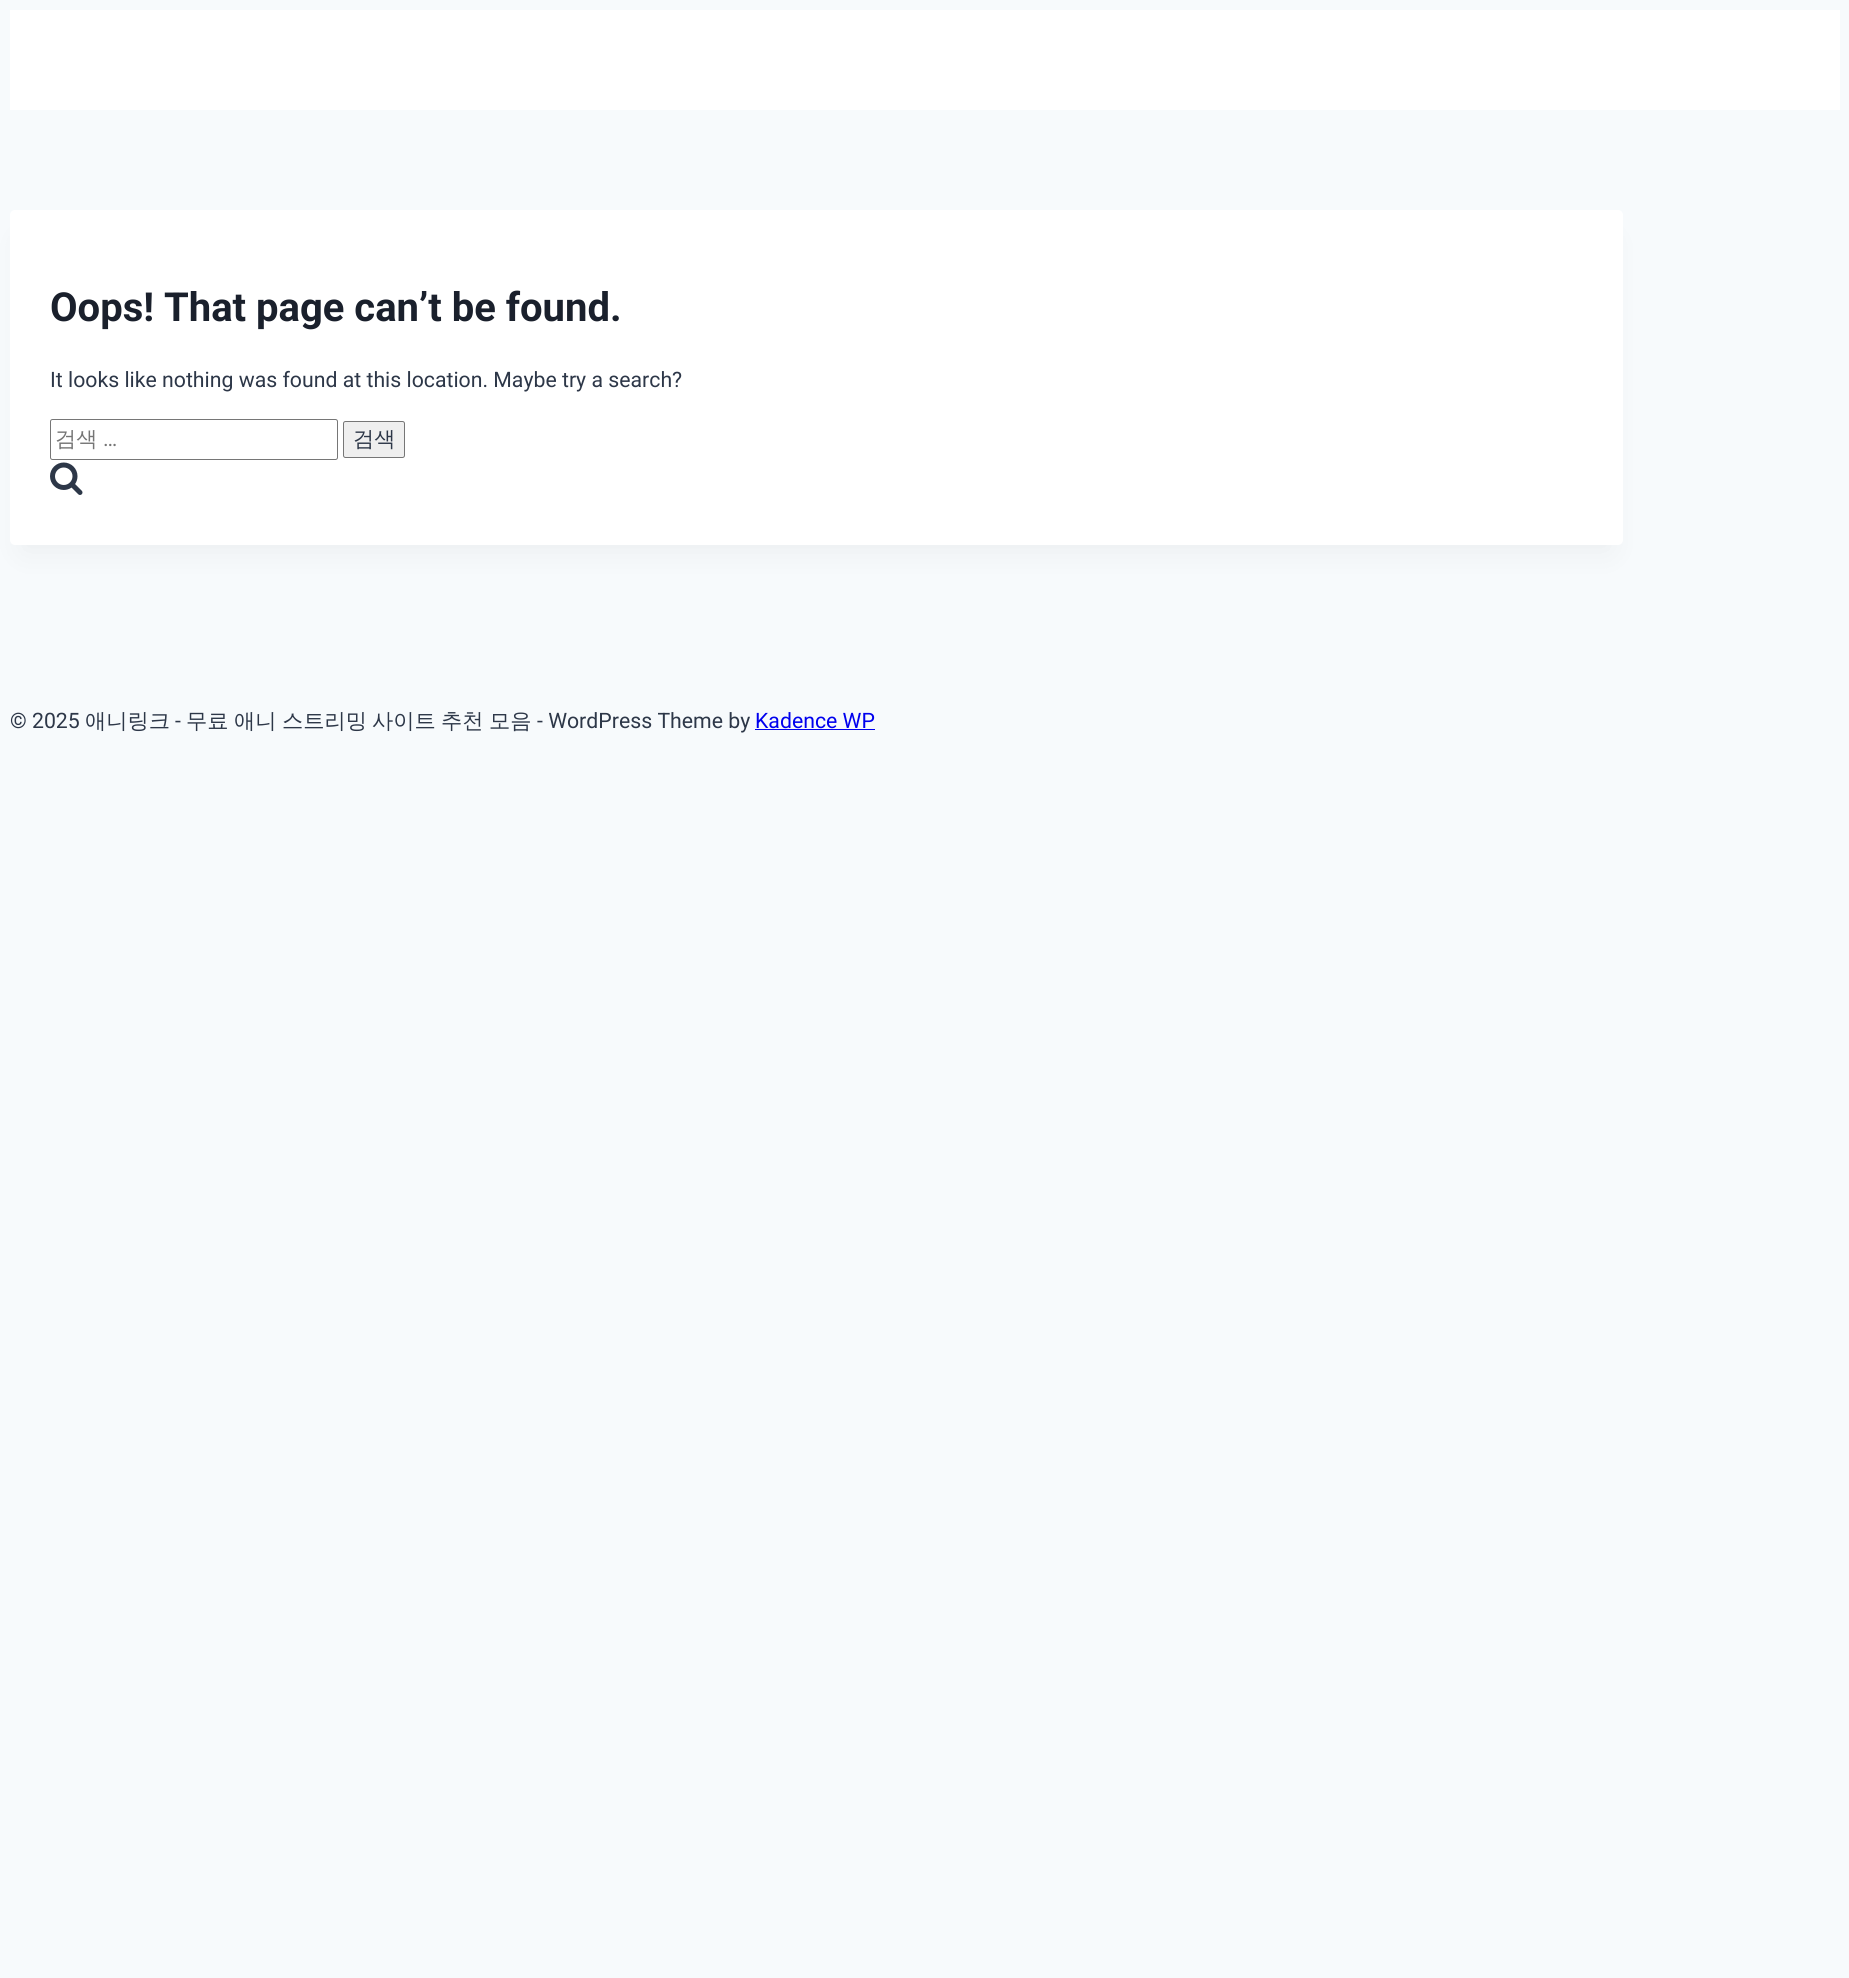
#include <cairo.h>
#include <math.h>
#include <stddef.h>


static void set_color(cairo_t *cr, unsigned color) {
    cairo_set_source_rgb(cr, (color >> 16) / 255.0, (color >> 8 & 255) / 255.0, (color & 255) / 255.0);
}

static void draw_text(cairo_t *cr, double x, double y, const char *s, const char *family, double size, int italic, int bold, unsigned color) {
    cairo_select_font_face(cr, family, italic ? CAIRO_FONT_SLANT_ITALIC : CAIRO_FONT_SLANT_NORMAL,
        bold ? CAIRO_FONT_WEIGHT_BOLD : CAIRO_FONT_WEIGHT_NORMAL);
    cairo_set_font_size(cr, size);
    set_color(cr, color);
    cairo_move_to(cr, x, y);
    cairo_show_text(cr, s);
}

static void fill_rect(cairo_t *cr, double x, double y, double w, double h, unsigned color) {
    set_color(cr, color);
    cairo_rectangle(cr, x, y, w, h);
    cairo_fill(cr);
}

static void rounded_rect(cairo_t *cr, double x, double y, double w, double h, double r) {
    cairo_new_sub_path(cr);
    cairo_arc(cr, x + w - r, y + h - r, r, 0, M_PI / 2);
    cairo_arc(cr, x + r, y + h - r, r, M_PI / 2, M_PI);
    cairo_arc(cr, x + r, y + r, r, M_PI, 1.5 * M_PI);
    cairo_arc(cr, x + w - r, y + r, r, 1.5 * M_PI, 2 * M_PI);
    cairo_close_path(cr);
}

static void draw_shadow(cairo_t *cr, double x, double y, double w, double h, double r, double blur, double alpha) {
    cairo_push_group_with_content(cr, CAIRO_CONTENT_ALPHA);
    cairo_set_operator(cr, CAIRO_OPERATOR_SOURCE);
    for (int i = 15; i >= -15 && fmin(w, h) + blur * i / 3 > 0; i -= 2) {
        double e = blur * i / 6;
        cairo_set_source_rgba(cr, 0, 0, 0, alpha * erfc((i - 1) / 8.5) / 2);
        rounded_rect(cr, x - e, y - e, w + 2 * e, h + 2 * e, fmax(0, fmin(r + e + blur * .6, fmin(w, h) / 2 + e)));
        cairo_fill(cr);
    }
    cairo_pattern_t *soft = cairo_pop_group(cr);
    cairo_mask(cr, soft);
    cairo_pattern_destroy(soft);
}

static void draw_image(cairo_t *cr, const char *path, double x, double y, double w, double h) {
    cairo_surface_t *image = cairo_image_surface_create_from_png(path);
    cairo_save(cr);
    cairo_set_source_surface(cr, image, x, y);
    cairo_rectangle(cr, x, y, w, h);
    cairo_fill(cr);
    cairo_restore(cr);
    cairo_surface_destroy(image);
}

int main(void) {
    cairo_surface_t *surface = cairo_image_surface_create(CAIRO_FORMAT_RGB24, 1849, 1978);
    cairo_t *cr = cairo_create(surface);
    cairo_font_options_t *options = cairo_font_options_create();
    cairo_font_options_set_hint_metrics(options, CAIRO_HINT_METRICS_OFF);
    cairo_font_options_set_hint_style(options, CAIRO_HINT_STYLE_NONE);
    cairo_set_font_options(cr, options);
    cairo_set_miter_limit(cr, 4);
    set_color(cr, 0xF7FAFC);
    cairo_paint(cr);
    fill_rect(cr, 10, 10, 1830, 100, 0xFFFFFF);
    set_color(cr, 0x000000);
    draw_shadow(cr, 23, 241, 1587, 310, 0, 15.5, 0.05);
    set_color(cr, 0xFFFFFF);
    rounded_rect(cr, 10, 210, 1613, 335, 5);
    cairo_fill(cr);
    draw_text(cr, 50, 321, "Oops! That page can’t be found.", "Roboto", 40, 0, 1, 0x1A202C);
    draw_text(cr, 50, 387, "It looks like nothing was found at this location. Maybe try a search?", "Roboto", 21.25, 0, 0, 0x2D3748);
    rounded_rect(cr, 50.5, 419.5, 287, 40, 2);
    set_color(cr, 0x767676);
    cairo_set_line_width(cr, 1);
    cairo_stroke(cr);
    draw_text(cr, 55, 446, "검색", "WenQuanYi Zen Hei Medium", 21.25, 0, 0, 0x757575);
    draw_text(cr, 103, 446, "…", "Roboto", 21.25, 0, 0, 0x757575);
    set_color(cr, 0xEFEFEF);
    rounded_rect(cr, 343.5, 421.5, 61, 36, 2);
    cairo_fill_preserve(cr);
    set_color(cr, 0x767676);
    cairo_stroke(cr);
    draw_text(cr, 353, 446, "검색", "WenQuanYi Zen Hei Medium", 21.25, 0, 0, 0x2D3748);
    draw_image(cr, "assets/img1.png", 50, 462, 33, 33);
    draw_text(cr, 10, 728, "© 2025", "Roboto", 21.25, 0, 0, 0x2D3748);
    draw_text(cr, 85, 728, "애니링크", "WenQuanYi Zen Hei Medium", 21.25, 0, 0, 0x2D3748);
    draw_text(cr, 175, 728, "-", "Roboto", 21.25, 0, 0, 0x2D3748);
    draw_text(cr, 186, 728, "무료", "WenQuanYi Zen Hei Medium", 21.25, 0, 0, 0x2D3748);
    draw_text(cr, 234, 728, "애니", "WenQuanYi Zen Hei Medium", 21.25, 0, 0, 0x2D3748);
    draw_text(cr, 282, 728, "스트리밍", "WenQuanYi Zen Hei Medium", 21.25, 0, 0, 0x2D3748);
    draw_text(cr, 372, 728, "사이트", "WenQuanYi Zen Hei Medium", 21.25, 0, 0, 0x2D3748);
    draw_text(cr, 441, 728, "추천", "WenQuanYi Zen Hei Medium", 21.25, 0, 0, 0x2D3748);
    draw_text(cr, 489, 728, "모음", "WenQuanYi Zen Hei Medium", 21.25, 0, 0, 0x2D3748);
    draw_text(cr, 537, 728, "- WordPress Theme by", "Roboto", 21.25, 0, 0, 0x2D3748);
    draw_text(cr, 755, 728, "Kadence WP", "Roboto", 21.25, 0, 0, 0x0000EE);
    fill_rect(cr, 755, 729, 120, 1, 0x0000EE);
    cairo_surface_write_to_png(surface, "output.png");
    cairo_font_options_destroy(options);
    cairo_destroy(cr);
    cairo_surface_destroy(surface);
    return 0;
}
